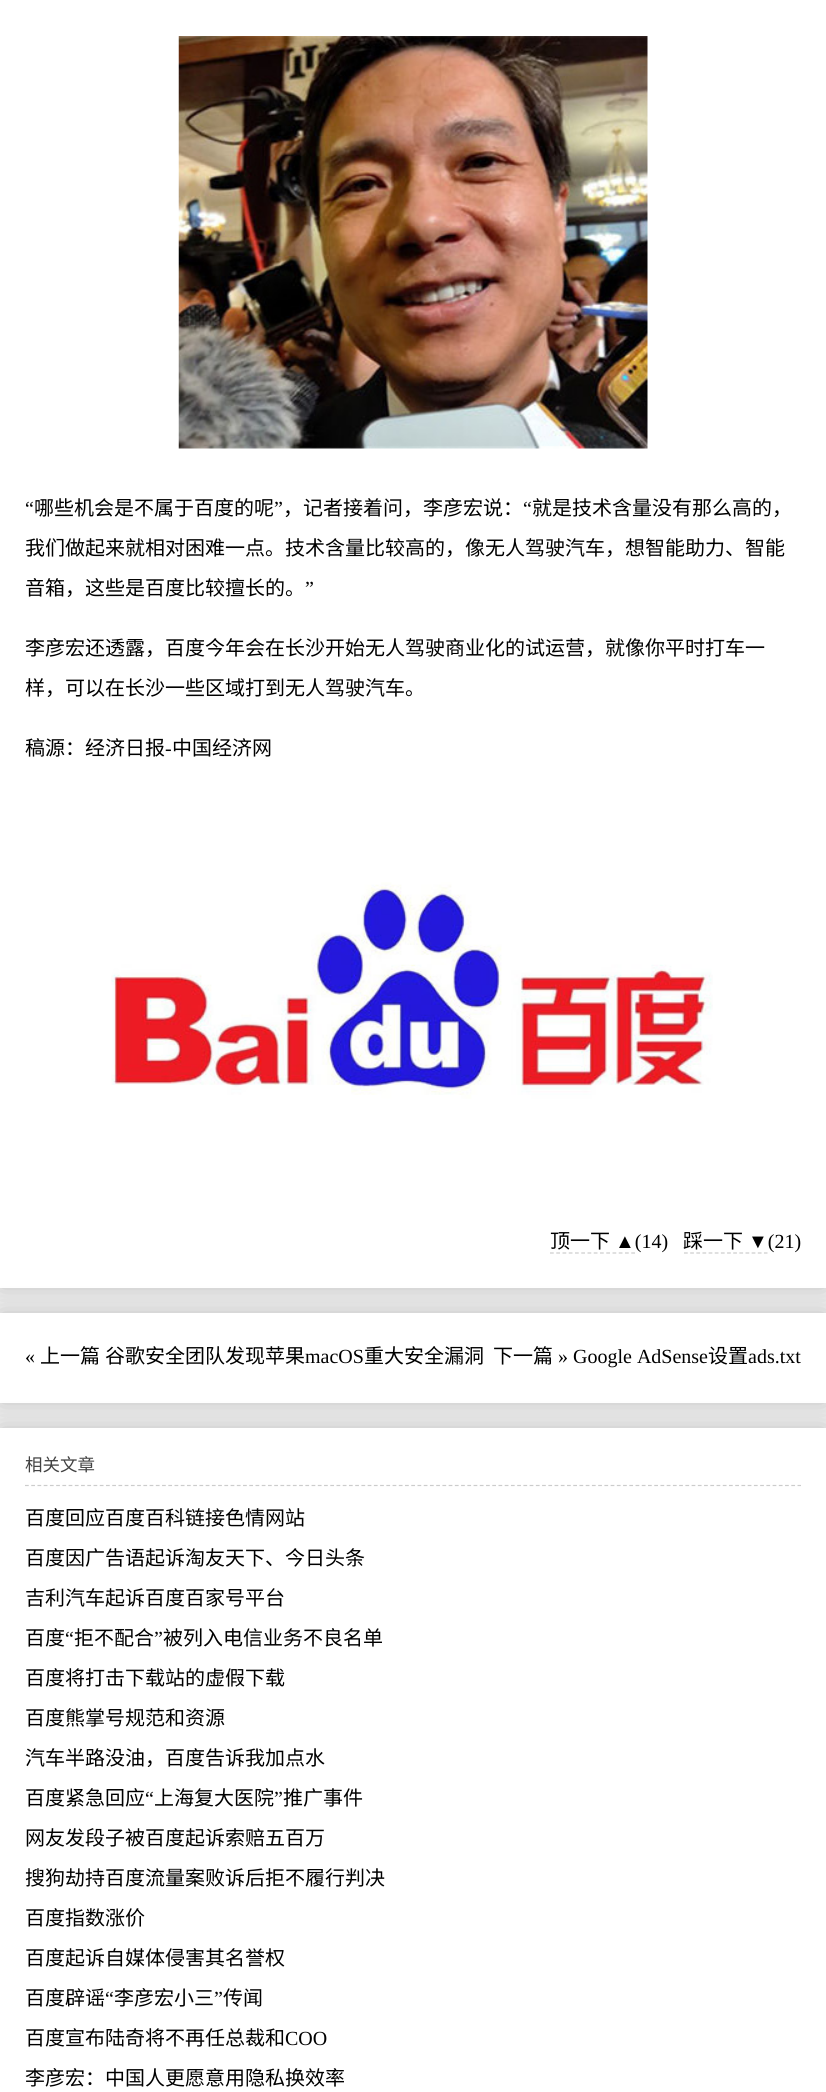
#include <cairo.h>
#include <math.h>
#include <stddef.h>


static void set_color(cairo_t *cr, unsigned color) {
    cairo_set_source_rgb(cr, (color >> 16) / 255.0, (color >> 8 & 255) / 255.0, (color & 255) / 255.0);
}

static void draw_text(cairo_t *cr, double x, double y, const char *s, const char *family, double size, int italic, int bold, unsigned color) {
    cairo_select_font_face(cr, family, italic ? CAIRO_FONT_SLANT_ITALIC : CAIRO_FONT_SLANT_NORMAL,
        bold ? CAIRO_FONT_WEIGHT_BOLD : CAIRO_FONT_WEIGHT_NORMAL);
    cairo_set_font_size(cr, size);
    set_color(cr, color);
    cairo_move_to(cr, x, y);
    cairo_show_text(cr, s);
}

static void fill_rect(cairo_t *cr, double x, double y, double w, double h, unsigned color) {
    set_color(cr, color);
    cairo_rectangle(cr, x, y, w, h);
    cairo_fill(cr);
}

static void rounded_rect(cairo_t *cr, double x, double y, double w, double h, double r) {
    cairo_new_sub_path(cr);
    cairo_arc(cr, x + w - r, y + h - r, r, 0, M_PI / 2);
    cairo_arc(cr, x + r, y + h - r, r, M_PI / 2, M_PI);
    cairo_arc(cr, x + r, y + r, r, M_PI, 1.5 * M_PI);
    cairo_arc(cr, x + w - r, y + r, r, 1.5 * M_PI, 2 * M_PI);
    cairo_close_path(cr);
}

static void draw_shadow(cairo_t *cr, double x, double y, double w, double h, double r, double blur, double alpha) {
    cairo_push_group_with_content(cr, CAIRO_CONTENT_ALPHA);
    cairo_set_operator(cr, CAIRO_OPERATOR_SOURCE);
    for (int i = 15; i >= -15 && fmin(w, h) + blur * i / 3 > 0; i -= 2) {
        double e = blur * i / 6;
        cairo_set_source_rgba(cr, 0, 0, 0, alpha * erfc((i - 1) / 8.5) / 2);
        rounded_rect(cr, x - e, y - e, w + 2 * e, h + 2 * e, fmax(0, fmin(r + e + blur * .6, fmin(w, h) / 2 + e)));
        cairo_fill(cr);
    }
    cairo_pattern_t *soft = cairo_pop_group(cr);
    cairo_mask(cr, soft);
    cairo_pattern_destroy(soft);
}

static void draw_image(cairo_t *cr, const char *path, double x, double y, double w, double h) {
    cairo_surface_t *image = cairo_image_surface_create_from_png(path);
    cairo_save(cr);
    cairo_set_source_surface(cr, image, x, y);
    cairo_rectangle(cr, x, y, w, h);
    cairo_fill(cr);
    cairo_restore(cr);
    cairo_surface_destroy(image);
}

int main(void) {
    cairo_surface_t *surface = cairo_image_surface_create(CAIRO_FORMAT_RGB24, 826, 2092);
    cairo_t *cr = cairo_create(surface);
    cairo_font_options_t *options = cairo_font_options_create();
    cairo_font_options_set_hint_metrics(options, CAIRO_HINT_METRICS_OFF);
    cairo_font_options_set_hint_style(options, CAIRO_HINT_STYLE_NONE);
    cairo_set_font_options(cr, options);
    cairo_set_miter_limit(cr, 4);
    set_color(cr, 0xF1F1F1);
    cairo_paint(cr);
    set_color(cr, 0x000000);
    draw_shadow(cr, 0, -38, 826, 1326, 0, 12.5, 0.2);
    fill_rect(cr, 0, 0, 826, 1288, 0xFFFFFF);
    draw_image(cr, "assets/img1.png", 178, 36, 470, 413);
    draw_text(cr, 25, 515, "“", "Liberation Serif", 20, 0, 0, 0x000000);
    draw_text(cr, 34, 515, "哪些机会是不属于百度的呢", "Noto Sans CJK SC", 20, 0, 0, 0x000000);
    draw_text(cr, 274, 515, "”", "Liberation Serif", 20, 0, 0, 0x000000);
    draw_text(cr, 283, 515, "，记者接着问，李彦宏说：", "Noto Sans CJK SC", 20, 0, 0, 0x000000);
    draw_text(cr, 523, 515, "“", "Liberation Serif", 20, 0, 0, 0x000000);
    draw_text(cr, 532, 515, "就是技术含量没有那么高的，", "Noto Sans CJK SC", 20, 0, 0, 0x000000);
    draw_text(cr, 25, 555, "我们做起来就相对困难一点。技术含量比较高的，像无人驾驶汽车，想智能助力、智能", "Noto Sans CJK SC", 20, 0, 0, 0x000000);
    draw_text(cr, 25, 595, "音箱，这些是百度比较擅长的。", "Noto Sans CJK SC", 20, 0, 0, 0x000000);
    draw_text(cr, 305, 595, "”", "Liberation Serif", 20, 0, 0, 0x000000);
    draw_text(cr, 25, 655, "李彦宏还透露，百度今年会在长沙开始无人驾驶商业化的试运营，就像你平时打车一", "Noto Sans CJK SC", 20, 0, 0, 0x000000);
    draw_text(cr, 25, 695, "样，可以在长沙一些区域打到无人驾驶汽车。", "Noto Sans CJK SC", 20, 0, 0, 0x000000);
    draw_text(cr, 25, 755, "稿源：经济日报", "Noto Sans CJK SC", 20, 0, 0, 0x000000);
    draw_text(cr, 165, 755, "-", "Liberation Serif", 20, 0, 0, 0x000000);
    draw_text(cr, 172, 755, "中国经济网", "Noto Sans CJK SC", 20, 0, 0, 0x000000);
    draw_image(cr, "assets/img2.png", 111, 882, 602, 217);
    draw_text(cr, 550, 1248, "顶一下", "Noto Sans CJK SC", 20, 0, 0, 0x000000);
    cairo_new_path(cr);
    cairo_move_to(cr, 550, 1253);
    cairo_line_to(cr, 635, 1253);
    set_color(cr, 0xCCCCCC);
    cairo_set_line_width(cr, 1.2);
    cairo_set_dash(cr, (double[]){3.75, 2.5}, 2, 0);
    cairo_stroke(cr);
    draw_text(cr, 615, 1248, "▲(14)", "Liberation Serif", 20, 0, 0, 0x000000);
    draw_text(cr, 683, 1248, "踩一下", "Noto Sans CJK SC", 20, 0, 0, 0x000000);
    cairo_new_path(cr);
    cairo_move_to(cr, 684, 1253);
    cairo_line_to(cr, 767.5, 1253);
    set_color(cr, 0xCCCCCC);
    cairo_set_dash(cr, (double[]){3.75, 2.4}, 2, 0);
    cairo_stroke(cr);
    draw_text(cr, 748, 1248, "▼(21)", "Liberation Serif", 20, 0, 0, 0x000000);
    set_color(cr, 0x000000);
    draw_shadow(cr, 0, 1313, 826, 90, 0, 12.5, 0.2);
    fill_rect(cr, 0, 1313, 826, 90, 0xFFFFFF);
    draw_text(cr, 25, 1363, "«", "Liberation Serif", 20, 0, 0, 0x000000);
    draw_text(cr, 40, 1363, "上一篇", "Noto Sans CJK SC", 20, 0, 0, 0x000000);
    draw_text(cr, 105, 1363, "谷歌安全团队发现苹果", "Noto Sans CJK SC", 20, 0, 0, 0x000000);
    draw_text(cr, 305, 1363, "macOS", "Liberation Serif", 20, 0, 0, 0x000000);
    draw_text(cr, 364, 1363, "重大安全漏洞", "Noto Sans CJK SC", 20, 0, 0, 0x000000);
    draw_text(cr, 493, 1363, "下一篇", "Noto Sans CJK SC", 20, 0, 0, 0x000000);
    draw_text(cr, 558, 1363, "» Google AdSense", "Liberation Serif", 20, 0, 0, 0x000000);
    draw_text(cr, 708, 1363, "设置", "Noto Sans CJK SC", 20, 0, 0, 0x000000);
    draw_text(cr, 748, 1363, "ads.txt", "Liberation Serif", 20, 0, 0, 0x000000);
    set_color(cr, 0x000000);
    draw_shadow(cr, 0, 1428, 826, 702, 0, 12.5, 0.2);
    fill_rect(cr, 0, 1428, 826, 664, 0xFFFFFF);
    cairo_new_path(cr);
    cairo_move_to(cr, 25, 1485.5);
    cairo_line_to(cr, 801, 1485.5);
    set_color(cr, 0xCCCCCC);
    cairo_set_dash(cr, (double[]){3.75, 2.48}, 2, 0);
    cairo_stroke(cr);
    draw_text(cr, 25, 1471, "相关文章", "Noto Sans CJK SC", 17.5, 0, 0, 0x424242);
    draw_text(cr, 25, 1525, "百度回应百度百科链接色情网站", "Noto Sans CJK SC", 20, 0, 0, 0x000000);
    draw_text(cr, 25, 1565, "百度因广告语起诉淘友天下、今日头条", "Noto Sans CJK SC", 20, 0, 0, 0x000000);
    draw_text(cr, 25, 1605, "吉利汽车起诉百度百家号平台", "Noto Sans CJK SC", 20, 0, 0, 0x000000);
    draw_text(cr, 25, 1645, "百度", "Noto Sans CJK SC", 20, 0, 0, 0x000000);
    draw_text(cr, 65, 1645, "“", "Liberation Serif", 20, 0, 0, 0x000000);
    draw_text(cr, 74, 1645, "拒不配合", "Noto Sans CJK SC", 20, 0, 0, 0x000000);
    draw_text(cr, 154, 1645, "”", "Liberation Serif", 20, 0, 0, 0x000000);
    draw_text(cr, 163, 1645, "被列入电信业务不良名单", "Noto Sans CJK SC", 20, 0, 0, 0x000000);
    draw_text(cr, 25, 1685, "百度将打击下载站的虚假下载", "Noto Sans CJK SC", 20, 0, 0, 0x000000);
    draw_text(cr, 25, 1725, "百度熊掌号规范和资源", "Noto Sans CJK SC", 20, 0, 0, 0x000000);
    draw_text(cr, 25, 1765, "汽车半路没油，百度告诉我加点水", "Noto Sans CJK SC", 20, 0, 0, 0x000000);
    draw_text(cr, 25, 1805, "百度紧急回应", "Noto Sans CJK SC", 20, 0, 0, 0x000000);
    draw_text(cr, 145, 1805, "“", "Liberation Serif", 20, 0, 0, 0x000000);
    draw_text(cr, 154, 1805, "上海复大医院", "Noto Sans CJK SC", 20, 0, 0, 0x000000);
    draw_text(cr, 274, 1805, "”", "Liberation Serif", 20, 0, 0, 0x000000);
    draw_text(cr, 283, 1805, "推广事件", "Noto Sans CJK SC", 20, 0, 0, 0x000000);
    draw_text(cr, 25, 1845, "网友发段子被百度起诉索赔五百万", "Noto Sans CJK SC", 20, 0, 0, 0x000000);
    draw_text(cr, 25, 1885, "搜狗劫持百度流量案败诉后拒不履行判决", "Noto Sans CJK SC", 20, 0, 0, 0x000000);
    draw_text(cr, 25, 1925, "百度指数涨价", "Noto Sans CJK SC", 20, 0, 0, 0x000000);
    draw_text(cr, 25, 1965, "百度起诉自媒体侵害其名誉权", "Noto Sans CJK SC", 20, 0, 0, 0x000000);
    draw_text(cr, 25, 2005, "百度辟谣", "Noto Sans CJK SC", 20, 0, 0, 0x000000);
    draw_text(cr, 105, 2005, "“", "Liberation Serif", 20, 0, 0, 0x000000);
    draw_text(cr, 114, 2005, "李彦宏小三", "Noto Sans CJK SC", 20, 0, 0, 0x000000);
    draw_text(cr, 214, 2005, "”", "Liberation Serif", 20, 0, 0, 0x000000);
    draw_text(cr, 223, 2005, "传闻", "Noto Sans CJK SC", 20, 0, 0, 0x000000);
    draw_text(cr, 25, 2045, "百度宣布陆奇将不再任总裁和", "Noto Sans CJK SC", 20, 0, 0, 0x000000);
    draw_text(cr, 285, 2045, "COO", "Liberation Serif", 20, 0, 0, 0x000000);
    draw_text(cr, 25, 2085, "李彦宏：中国人更愿意用隐私换效率", "Noto Sans CJK SC", 20, 0, 0, 0x000000);
    cairo_surface_write_to_png(surface, "output.png");
    cairo_font_options_destroy(options);
    cairo_destroy(cr);
    cairo_surface_destroy(surface);
    return 0;
}
